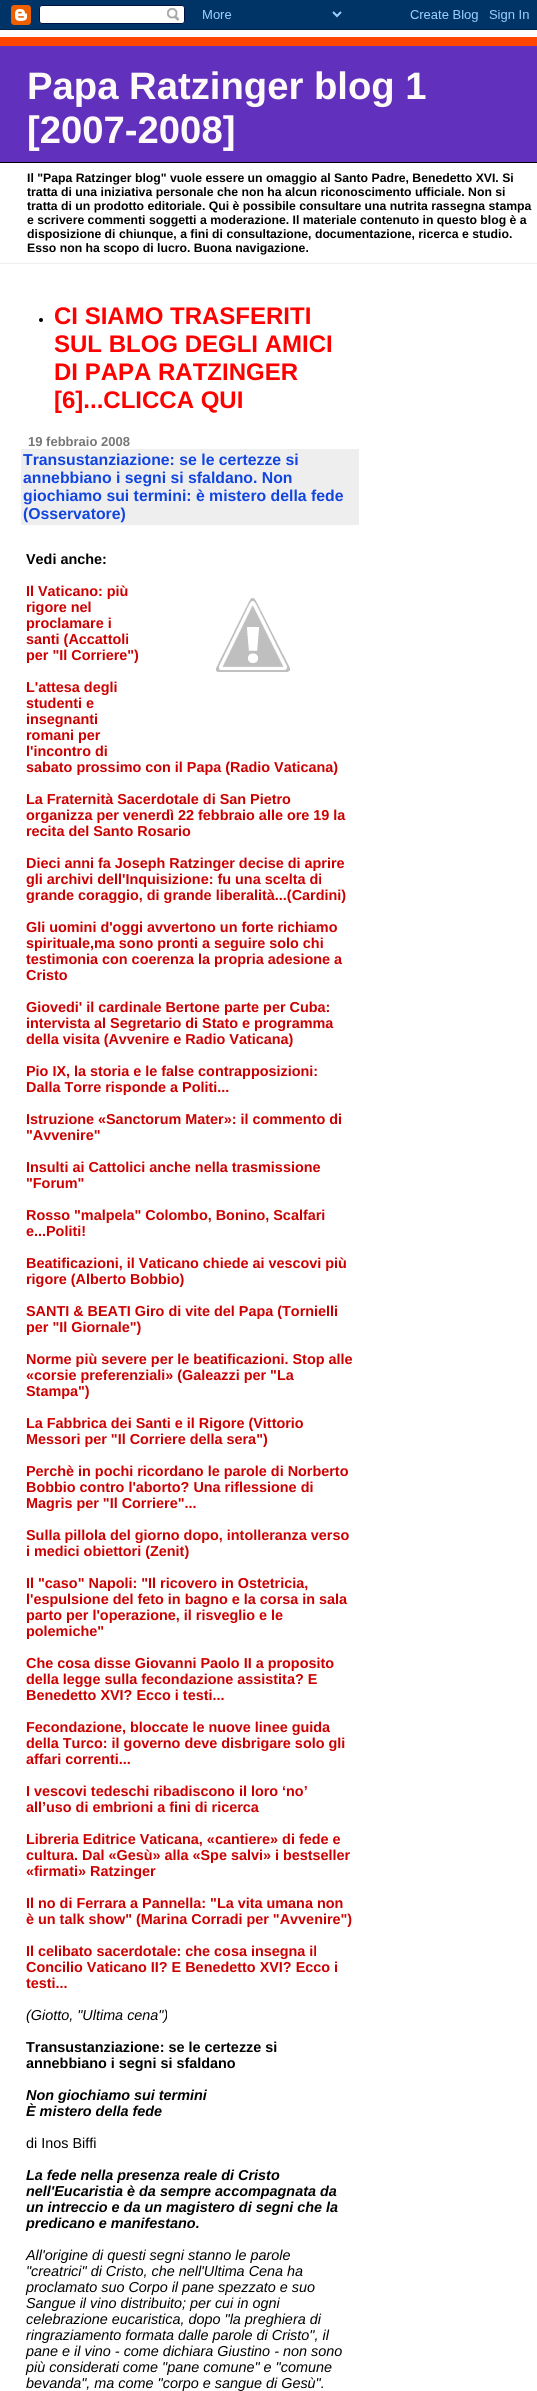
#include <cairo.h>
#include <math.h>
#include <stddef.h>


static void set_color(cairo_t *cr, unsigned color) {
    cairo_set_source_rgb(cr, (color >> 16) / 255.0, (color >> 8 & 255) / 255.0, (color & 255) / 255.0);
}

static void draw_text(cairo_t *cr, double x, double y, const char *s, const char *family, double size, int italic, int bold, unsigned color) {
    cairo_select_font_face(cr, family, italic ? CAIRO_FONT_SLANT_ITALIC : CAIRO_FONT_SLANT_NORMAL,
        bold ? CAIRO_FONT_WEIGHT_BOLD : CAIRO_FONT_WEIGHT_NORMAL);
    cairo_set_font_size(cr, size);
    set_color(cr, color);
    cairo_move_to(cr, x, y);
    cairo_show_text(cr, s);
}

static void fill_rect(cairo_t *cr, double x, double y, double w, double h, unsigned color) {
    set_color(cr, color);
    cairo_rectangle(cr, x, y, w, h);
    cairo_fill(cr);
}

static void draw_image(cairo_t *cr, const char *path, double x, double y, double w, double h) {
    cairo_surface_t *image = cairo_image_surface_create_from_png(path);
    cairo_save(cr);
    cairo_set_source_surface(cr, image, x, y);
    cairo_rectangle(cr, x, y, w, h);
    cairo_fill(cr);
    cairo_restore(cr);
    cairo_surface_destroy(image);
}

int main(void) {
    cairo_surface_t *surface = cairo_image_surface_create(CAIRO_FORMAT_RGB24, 537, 2391);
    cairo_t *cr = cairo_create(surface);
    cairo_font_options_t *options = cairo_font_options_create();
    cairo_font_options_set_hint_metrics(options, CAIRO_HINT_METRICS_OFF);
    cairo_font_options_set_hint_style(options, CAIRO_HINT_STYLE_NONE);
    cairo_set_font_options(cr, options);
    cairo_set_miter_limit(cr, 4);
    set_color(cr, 0xFFFFFF);
    cairo_paint(cr);
    draw_image(cr, "assets/img1.png", 0, 0, 537, 30);
    fill_rect(cr, 0, 263, 537, 1, 0xEEEEEE);
    fill_rect(cr, 0, 46, 537, 116, 0x6131BD);
    fill_rect(cr, 0, 37, 537, 9, 0xFF4500);
    fill_rect(cr, 0, 162, 537, 1, 0x000000);
    draw_text(cr, 27, 99, "Papa Ratzinger blog 1", "Liberation Sans", 38.25, 0, 1, 0xFFFAFA);
    draw_text(cr, 27, 143, "[2007-2008]", "Liberation Sans", 38.25, 0, 1, 0xFFFAFA);
    draw_text(cr, 27, 182, "Il \"Papa Ratzinger blog\" vuole essere un omaggio al Santo Padre, Benedetto XVI. Si", "Liberation Sans", 12.25, 0, 1, 0x000000);
    draw_text(cr, 27, 196, "tratta di una iniziativa personale che non ha alcun riconoscimento ufficiale. Non si", "Liberation Sans", 12.25, 0, 1, 0x000000);
    draw_text(cr, 27, 210, "tratta di un prodotto editoriale. Qui è possibile consultare una nutrita rassegna stampa", "Liberation Sans", 12.25, 0, 1, 0x000000);
    draw_text(cr, 27, 224, "e scrivere commenti soggetti a moderazione. Il materiale contenuto in questo blog è a", "Liberation Sans", 12.25, 0, 1, 0x000000);
    draw_text(cr, 27, 238, "disposizione di chiunque, a fini di consultazione, documentazione, ricerca e studio.", "Liberation Sans", 12.25, 0, 1, 0x000000);
    draw_text(cr, 27, 252, "Esso non ha scopo di lucro. Buona navigazione.", "Liberation Sans", 12.25, 0, 1, 0x000000);
    cairo_new_path(cr);
    cairo_arc(cr, 41, 320, 2, 0, 2 * M_PI);
    cairo_fill(cr);
    draw_text(cr, 54, 324, "CI SIAMO TRASFERITI", "Liberation Sans", 24, 0, 1, 0xFF0000);
    draw_text(cr, 54, 352, "SUL BLOG DEGLI AMICI", "Liberation Sans", 24, 0, 1, 0xFF0000);
    draw_text(cr, 54, 380, "DI PAPA RATZINGER", "Liberation Sans", 24, 0, 1, 0xFF0000);
    draw_text(cr, 54, 408, "[6]...CLICCA QUI", "Liberation Sans", 24, 0, 1, 0xFF0000);
    draw_text(cr, 28, 446, "19 febbraio 2008", "Liberation Sans", 13, 0, 1, 0x777777);
    fill_rect(cr, 21, 449, 338, 76, 0xEEEEEE);
    draw_text(cr, 23, 465, "Transustanziazione: se le certezze si", "Liberation Sans", 15.8, 0, 1, 0x1245E0);
    draw_text(cr, 23, 483, "annebbiano i segni si sfaldano. Non", "Liberation Sans", 15.8, 0, 1, 0x1245E0);
    draw_text(cr, 23, 501, "giochiamo sui termini: è mistero della fede", "Liberation Sans", 15.8, 0, 1, 0x1245E0);
    draw_text(cr, 23, 519, "(Osservatore)", "Liberation Sans", 15.8, 0, 1, 0x1245E0);
    draw_text(cr, 26, 564, "Vedi anche:", "Liberation Sans", 14.4, 0, 1, 0x000000);
    draw_text(cr, 26, 596, "Il Vaticano: più", "Liberation Sans", 14.4, 0, 1, 0xCC0000);
    draw_text(cr, 26, 612, "rigore nel", "Liberation Sans", 14.4, 0, 1, 0xCC0000);
    draw_image(cr, "assets/img2.png", 216, 598, 74, 74);
    draw_text(cr, 26, 628, "proclamare i", "Liberation Sans", 14.4, 0, 1, 0xCC0000);
    draw_text(cr, 26, 644, "santi (Accattoli", "Liberation Sans", 14.4, 0, 1, 0xCC0000);
    draw_text(cr, 26, 660, "per \"Il Corriere\")", "Liberation Sans", 14.4, 0, 1, 0xCC0000);
    draw_text(cr, 26, 692, "L'attesa degli", "Liberation Sans", 14.4, 0, 1, 0xCC0000);
    draw_text(cr, 26, 708, "studenti e", "Liberation Sans", 14.4, 0, 1, 0xCC0000);
    draw_text(cr, 26, 724, "insegnanti", "Liberation Sans", 14.4, 0, 1, 0xCC0000);
    draw_text(cr, 26, 740, "romani per", "Liberation Sans", 14.4, 0, 1, 0xCC0000);
    draw_text(cr, 26, 756, "l'incontro di", "Liberation Sans", 14.4, 0, 1, 0xCC0000);
    draw_text(cr, 26, 772, "sabato prossimo con il Papa (Radio Vaticana)", "Liberation Sans", 14.4, 0, 1, 0xCC0000);
    draw_text(cr, 26, 804, "La Fraternità Sacerdotale di San Pietro", "Liberation Sans", 14.4, 0, 1, 0xCC0000);
    draw_text(cr, 26, 820, "organizza per venerdì 22 febbraio alle ore 19 la", "Liberation Sans", 14.4, 0, 1, 0xCC0000);
    draw_text(cr, 26, 836, "recita del Santo Rosario", "Liberation Sans", 14.4, 0, 1, 0xCC0000);
    draw_text(cr, 26, 868, "Dieci anni fa Joseph Ratzinger decise di aprire", "Liberation Sans", 14.4, 0, 1, 0xCC0000);
    draw_text(cr, 26, 884, "gli archivi dell'Inquisizione: fu una scelta di", "Liberation Sans", 14.4, 0, 1, 0xCC0000);
    draw_text(cr, 26, 900, "grande coraggio, di grande liberalità...(Cardini)", "Liberation Sans", 14.4, 0, 1, 0xCC0000);
    draw_text(cr, 26, 932, "Gli uomini d'oggi avvertono un forte richiamo", "Liberation Sans", 14.4, 0, 1, 0xCC0000);
    draw_text(cr, 26, 948, "spirituale,ma sono pronti a seguire solo chi", "Liberation Sans", 14.4, 0, 1, 0xCC0000);
    draw_text(cr, 26, 964, "testimonia con coerenza la propria adesione a", "Liberation Sans", 14.4, 0, 1, 0xCC0000);
    draw_text(cr, 26, 980, "Cristo", "Liberation Sans", 14.4, 0, 1, 0xCC0000);
    draw_text(cr, 26, 1012, "Giovedi' il cardinale Bertone parte per Cuba:", "Liberation Sans", 14.4, 0, 1, 0xCC0000);
    draw_text(cr, 26, 1028, "intervista al Segretario di Stato e programma", "Liberation Sans", 14.4, 0, 1, 0xCC0000);
    draw_text(cr, 26, 1044, "della visita (Avvenire e Radio Vaticana)", "Liberation Sans", 14.4, 0, 1, 0xCC0000);
    draw_text(cr, 26, 1076, "Pio IX, la storia e le false contrapposizioni:", "Liberation Sans", 14.4, 0, 1, 0xCC0000);
    draw_text(cr, 26, 1092, "Dalla Torre risponde a Politi...", "Liberation Sans", 14.4, 0, 1, 0xCC0000);
    draw_text(cr, 26, 1124, "Istruzione «Sanctorum Mater»: il commento di", "Liberation Sans", 14.4, 0, 1, 0xCC0000);
    draw_text(cr, 26, 1140, "\"Avvenire\"", "Liberation Sans", 14.4, 0, 1, 0xCC0000);
    draw_text(cr, 26, 1172, "Insulti ai Cattolici anche nella trasmissione", "Liberation Sans", 14.4, 0, 1, 0xCC0000);
    draw_text(cr, 26, 1188, "\"Forum\"", "Liberation Sans", 14.4, 0, 1, 0xCC0000);
    draw_text(cr, 26, 1220, "Rosso \"malpela\" Colombo, Bonino, Scalfari", "Liberation Sans", 14.4, 0, 1, 0xCC0000);
    draw_text(cr, 26, 1236, "e...Politi!", "Liberation Sans", 14.4, 0, 1, 0xCC0000);
    draw_text(cr, 26, 1268, "Beatificazioni, il Vaticano chiede ai vescovi più", "Liberation Sans", 14.4, 0, 1, 0xCC0000);
    draw_text(cr, 26, 1284, "rigore (Alberto Bobbio)", "Liberation Sans", 14.4, 0, 1, 0xCC0000);
    draw_text(cr, 26, 1316, "SANTI & BEATI Giro di vite del Papa (Tornielli", "Liberation Sans", 14.4, 0, 1, 0xCC0000);
    draw_text(cr, 26, 1332, "per \"Il Giornale\")", "Liberation Sans", 14.4, 0, 1, 0xCC0000);
    draw_text(cr, 26, 1364, "Norme più severe per le beatificazioni. Stop alle", "Liberation Sans", 14.4, 0, 1, 0xCC0000);
    draw_text(cr, 26, 1380, "«corsie preferenziali» (Galeazzi per \"La", "Liberation Sans", 14.4, 0, 1, 0xCC0000);
    draw_text(cr, 26, 1396, "Stampa\")", "Liberation Sans", 14.4, 0, 1, 0xCC0000);
    draw_text(cr, 26, 1428, "La Fabbrica dei Santi e il Rigore (Vittorio", "Liberation Sans", 14.4, 0, 1, 0xCC0000);
    draw_text(cr, 26, 1444, "Messori per \"Il Corriere della sera\")", "Liberation Sans", 14.4, 0, 1, 0xCC0000);
    draw_text(cr, 26, 1476, "Perchè in pochi ricordano le parole di Norberto", "Liberation Sans", 14.4, 0, 1, 0xCC0000);
    draw_text(cr, 26, 1492, "Bobbio contro l'aborto? Una riflessione di", "Liberation Sans", 14.4, 0, 1, 0xCC0000);
    draw_text(cr, 26, 1508, "Magris per \"Il Corriere\"...", "Liberation Sans", 14.4, 0, 1, 0xCC0000);
    draw_text(cr, 26, 1540, "Sulla pillola del giorno dopo, intolleranza verso", "Liberation Sans", 14.4, 0, 1, 0xCC0000);
    draw_text(cr, 26, 1556, "i medici obiettori (Zenit)", "Liberation Sans", 14.4, 0, 1, 0xCC0000);
    draw_text(cr, 26, 1588, "Il \"caso\" Napoli: \"Il ricovero in Ostetricia,", "Liberation Sans", 14.4, 0, 1, 0xCC0000);
    draw_text(cr, 26, 1604, "l'espulsione del feto in bagno e la corsa in sala", "Liberation Sans", 14.4, 0, 1, 0xCC0000);
    draw_text(cr, 26, 1620, "parto per l'operazione, il risveglio e le", "Liberation Sans", 14.4, 0, 1, 0xCC0000);
    draw_text(cr, 26, 1636, "polemiche\"", "Liberation Sans", 14.4, 0, 1, 0xCC0000);
    draw_text(cr, 26, 1668, "Che cosa disse Giovanni Paolo II a proposito", "Liberation Sans", 14.4, 0, 1, 0xCC0000);
    draw_text(cr, 26, 1684, "della legge sulla fecondazione assistita? E", "Liberation Sans", 14.4, 0, 1, 0xCC0000);
    draw_text(cr, 26, 1700, "Benedetto XVI? Ecco i testi...", "Liberation Sans", 14.4, 0, 1, 0xCC0000);
    draw_text(cr, 26, 1732, "Fecondazione, bloccate le nuove linee guida", "Liberation Sans", 14.4, 0, 1, 0xCC0000);
    draw_text(cr, 26, 1748, "della Turco: il governo deve disbrigare solo gli", "Liberation Sans", 14.4, 0, 1, 0xCC0000);
    draw_text(cr, 26, 1764, "affari correnti...", "Liberation Sans", 14.4, 0, 1, 0xCC0000);
    draw_text(cr, 26, 1796, "I vescovi tedeschi ribadiscono il loro ‘no’", "Liberation Sans", 14.4, 0, 1, 0xCC0000);
    draw_text(cr, 26, 1812, "all’uso di embrioni a fini di ricerca", "Liberation Sans", 14.4, 0, 1, 0xCC0000);
    draw_text(cr, 26, 1844, "Libreria Editrice Vaticana, «cantiere» di fede e", "Liberation Sans", 14.4, 0, 1, 0xCC0000);
    draw_text(cr, 26, 1860, "cultura. Dal «Gesù» alla «Spe salvi» i bestseller", "Liberation Sans", 14.4, 0, 1, 0xCC0000);
    draw_text(cr, 26, 1876, "«firmati» Ratzinger", "Liberation Sans", 14.4, 0, 1, 0xCC0000);
    draw_text(cr, 26, 1908, "Il no di Ferrara a Pannella: \"La vita umana non", "Liberation Sans", 14.4, 0, 1, 0xCC0000);
    draw_text(cr, 26, 1924, "è un talk show\" (Marina Corradi per \"Avvenire\")", "Liberation Sans", 14.4, 0, 1, 0xCC0000);
    draw_text(cr, 26, 1956, "Il celibato sacerdotale: che cosa insegna il", "Liberation Sans", 14.4, 0, 1, 0xCC0000);
    draw_text(cr, 26, 1972, "Concilio Vaticano II? E Benedetto XVI? Ecco i", "Liberation Sans", 14.4, 0, 1, 0xCC0000);
    draw_text(cr, 26, 1988, "testi...", "Liberation Sans", 14.4, 0, 1, 0xCC0000);
    draw_text(cr, 26, 2020, "(Giotto, \"Ultima cena\")", "Liberation Sans", 14.4, 1, 0, 0x000000);
    draw_text(cr, 26, 2052, "Transustanziazione: se le certezze si", "Liberation Sans", 14.4, 0, 1, 0x000000);
    draw_text(cr, 26, 2068, "annebbiano i segni si sfaldano", "Liberation Sans", 14.4, 0, 1, 0x000000);
    draw_text(cr, 26, 2100, "Non giochiamo sui termini", "Liberation Sans", 14.4, 1, 1, 0x000000);
    draw_text(cr, 26, 2116, "È mistero della fede", "Liberation Sans", 14.4, 1, 1, 0x000000);
    draw_text(cr, 26, 2148, "di Inos Biffi", "Liberation Sans", 14.4, 0, 0, 0x000000);
    draw_text(cr, 26, 2180, "La fede nella presenza reale di Cristo", "Liberation Sans", 14.4, 1, 1, 0x000000);
    draw_text(cr, 26, 2196, "nell'Eucaristia è da sempre accompagnata da", "Liberation Sans", 14.4, 1, 1, 0x000000);
    draw_text(cr, 26, 2212, "un intreccio e da un magistero di segni che la", "Liberation Sans", 14.4, 1, 1, 0x000000);
    draw_text(cr, 26, 2228, "predicano e manifestano.", "Liberation Sans", 14.4, 1, 1, 0x000000);
    draw_text(cr, 26, 2260, "All'origine di questi segni stanno le parole", "Liberation Sans", 14.4, 1, 0, 0x000000);
    draw_text(cr, 26, 2276, "\"creatrici\" di Cristo, che nell'Ultima Cena ha", "Liberation Sans", 14.4, 1, 0, 0x000000);
    draw_text(cr, 26, 2292, "proclamato suo Corpo il pane spezzato e suo", "Liberation Sans", 14.4, 1, 0, 0x000000);
    draw_text(cr, 26, 2308, "Sangue il vino distribuito; per cui in ogni", "Liberation Sans", 14.4, 1, 0, 0x000000);
    draw_text(cr, 26, 2324, "celebrazione eucaristica, dopo \"la preghiera di", "Liberation Sans", 14.4, 1, 0, 0x000000);
    draw_text(cr, 26, 2340, "ringraziamento formata dalle parole di Cristo\", il", "Liberation Sans", 14.4, 1, 0, 0x000000);
    draw_text(cr, 26, 2356, "pane e il vino - come dichiara Giustino - non sono", "Liberation Sans", 14.4, 1, 0, 0x000000);
    draw_text(cr, 26, 2372, "più considerati come \"pane comune\" e \"comune", "Liberation Sans", 14.4, 1, 0, 0x000000);
    draw_text(cr, 26, 2388, "bevanda\", ma come \"corpo e sangue di Gesù\".", "Liberation Sans", 14.4, 1, 0, 0x000000);
    cairo_surface_write_to_png(surface, "output.png");
    cairo_font_options_destroy(options);
    cairo_destroy(cr);
    cairo_surface_destroy(surface);
    return 0;
}
